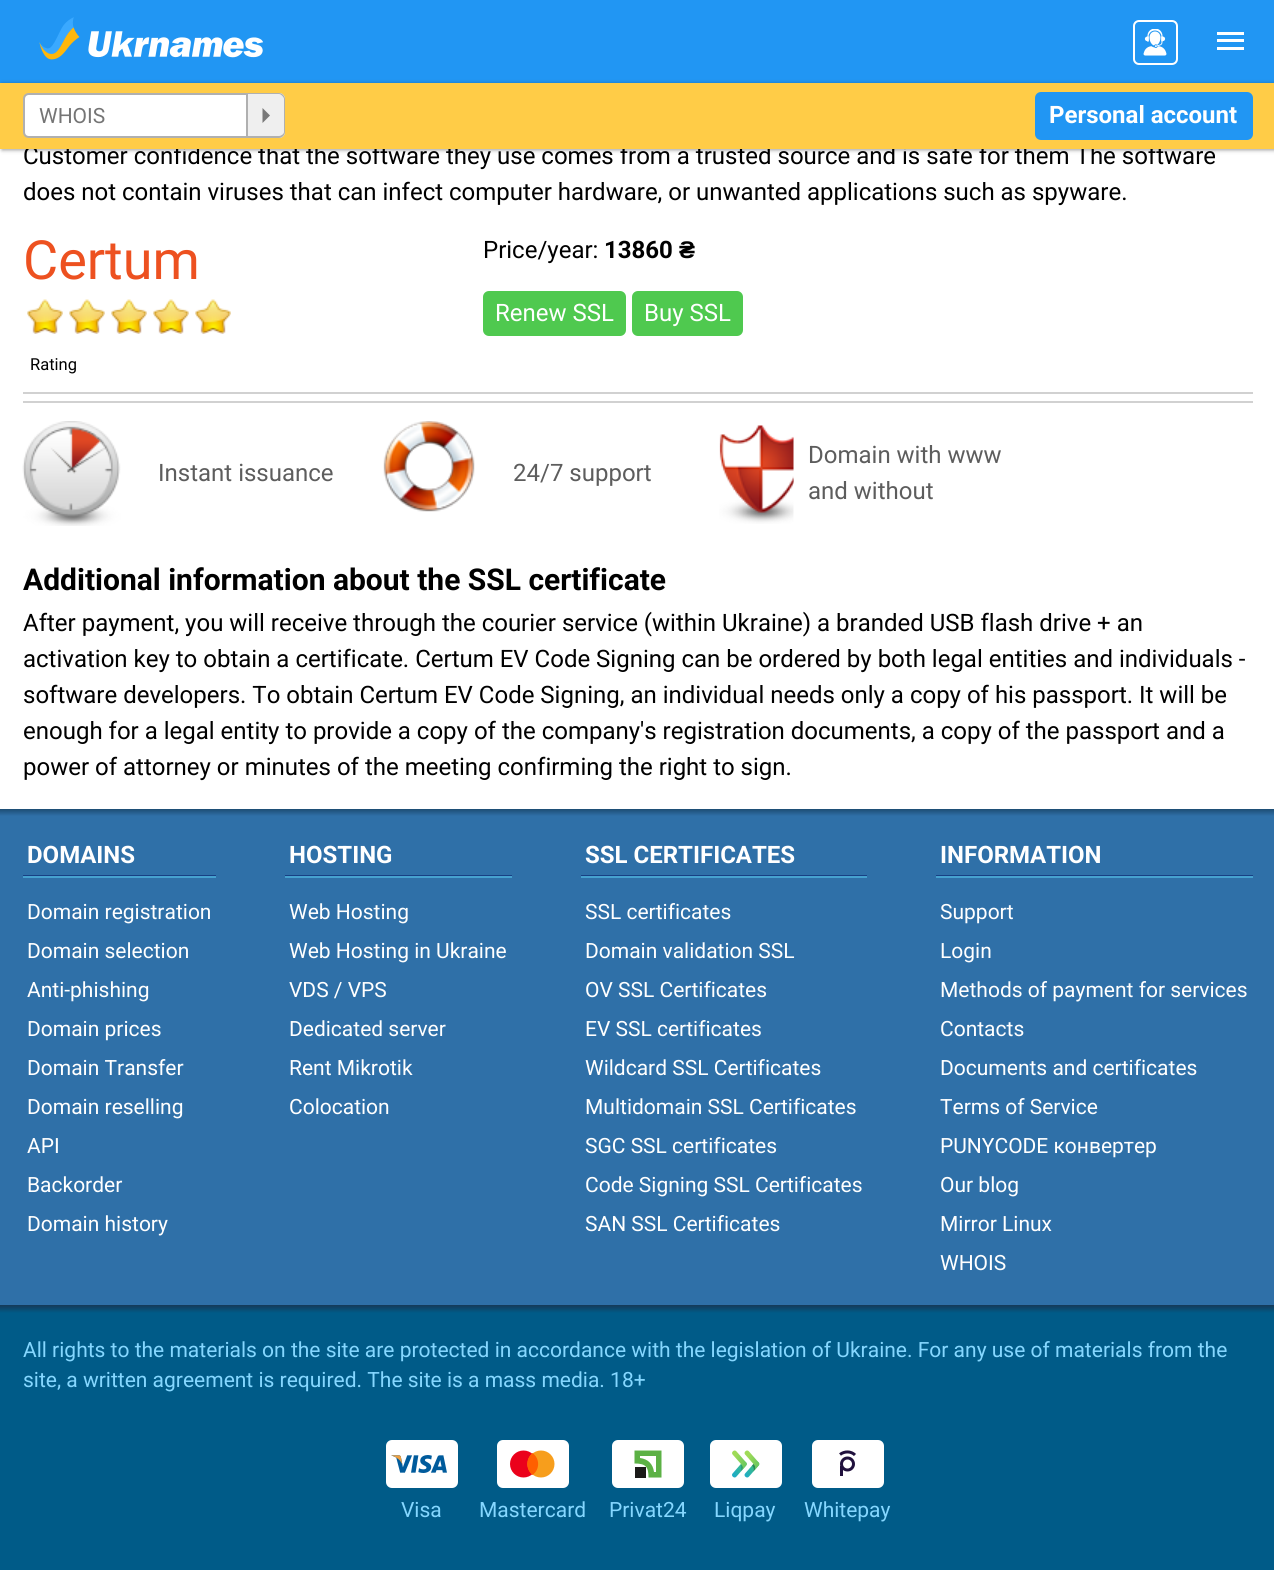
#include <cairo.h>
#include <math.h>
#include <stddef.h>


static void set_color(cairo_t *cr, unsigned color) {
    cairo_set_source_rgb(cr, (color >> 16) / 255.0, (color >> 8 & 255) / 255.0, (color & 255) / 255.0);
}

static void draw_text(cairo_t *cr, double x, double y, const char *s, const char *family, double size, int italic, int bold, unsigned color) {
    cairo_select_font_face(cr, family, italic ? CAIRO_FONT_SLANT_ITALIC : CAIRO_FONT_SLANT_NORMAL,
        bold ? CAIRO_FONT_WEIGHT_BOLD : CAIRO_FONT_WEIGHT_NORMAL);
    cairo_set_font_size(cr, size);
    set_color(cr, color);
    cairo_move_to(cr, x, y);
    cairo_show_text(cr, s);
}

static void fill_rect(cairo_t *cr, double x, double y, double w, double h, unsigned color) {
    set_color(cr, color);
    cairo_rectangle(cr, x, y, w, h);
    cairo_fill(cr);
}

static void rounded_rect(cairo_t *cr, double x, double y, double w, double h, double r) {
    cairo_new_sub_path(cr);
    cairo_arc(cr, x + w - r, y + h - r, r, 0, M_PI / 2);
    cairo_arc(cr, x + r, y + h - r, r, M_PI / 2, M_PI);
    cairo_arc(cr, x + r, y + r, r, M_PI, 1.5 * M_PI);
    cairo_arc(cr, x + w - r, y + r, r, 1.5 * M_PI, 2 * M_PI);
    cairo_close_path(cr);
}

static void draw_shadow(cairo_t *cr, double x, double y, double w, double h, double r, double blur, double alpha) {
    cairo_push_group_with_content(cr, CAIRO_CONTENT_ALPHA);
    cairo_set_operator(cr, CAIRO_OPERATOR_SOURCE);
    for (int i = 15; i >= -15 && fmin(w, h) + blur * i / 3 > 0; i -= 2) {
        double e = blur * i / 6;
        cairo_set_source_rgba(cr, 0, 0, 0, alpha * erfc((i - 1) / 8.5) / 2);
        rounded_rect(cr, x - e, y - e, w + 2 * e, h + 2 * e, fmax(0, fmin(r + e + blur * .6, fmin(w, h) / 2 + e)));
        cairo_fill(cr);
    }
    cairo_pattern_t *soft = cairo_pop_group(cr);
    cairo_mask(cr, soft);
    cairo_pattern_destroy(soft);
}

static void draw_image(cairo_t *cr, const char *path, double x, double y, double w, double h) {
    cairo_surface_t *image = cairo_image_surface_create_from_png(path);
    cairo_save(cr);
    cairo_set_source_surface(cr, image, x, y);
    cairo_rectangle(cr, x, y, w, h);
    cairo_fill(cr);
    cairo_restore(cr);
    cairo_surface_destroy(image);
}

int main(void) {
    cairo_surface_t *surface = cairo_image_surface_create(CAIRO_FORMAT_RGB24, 1274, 1570);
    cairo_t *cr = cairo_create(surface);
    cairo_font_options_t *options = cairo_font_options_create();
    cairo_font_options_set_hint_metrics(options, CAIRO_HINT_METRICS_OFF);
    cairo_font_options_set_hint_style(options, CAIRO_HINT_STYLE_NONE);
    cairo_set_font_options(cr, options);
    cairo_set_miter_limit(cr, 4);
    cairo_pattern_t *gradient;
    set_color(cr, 0x005B88);
    cairo_paint(cr);
    fill_rect(cr, 0, 0, 1274, 83, 0x2196F3);
    draw_image(cr, "assets/img1.png", 39, 17, 224, 43);
    rounded_rect(cr, 1134, 21, 43, 43, 5);
    set_color(cr, 0xFFFFFF);
    cairo_stroke(cr);
    draw_image(cr, "assets/img2.png", 1143, 29, 24, 27);
    fill_rect(cr, 1217, 32, 27, 3, 0xFFFFFF);
    fill_rect(cr, 1217, 39, 27, 3, 0xFFFFFF);
    fill_rect(cr, 1217, 47, 27, 3, 0xFFFFFF);
    fill_rect(cr, 0, 149, 1274, 660, 0xFFFFFF);
    set_color(cr, 0x000000);
    draw_shadow(cr, 2, 84, 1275, 66, 0, 2, 0.4);
    draw_text(cr, 23, 164, "Customer confidence that the software they use comes from a trusted source and is safe for them The software", "Roboto", 24, 0, 0, 0x000000);
    fill_rect(cr, 0, 83, 1274, 66, 0xFFCC47);
    set_color(cr, 0xFFFFFF);
    cairo_new_path(cr);
    cairo_move_to(cr, 29, 94);
    cairo_line_to(cr, 247, 94);
    cairo_line_to(cr, 247, 137);
    cairo_line_to(cr, 29, 137);
    cairo_curve_to(cr, 26, 137, 24, 135, 24, 132);
    cairo_line_to(cr, 24, 99);
    cairo_curve_to(cr, 24, 96, 26, 94, 29, 94);
    cairo_close_path(cr);
    cairo_fill_preserve(cr);
    set_color(cr, 0xB0B0B0);
    cairo_stroke(cr);
    draw_text(cr, 39, 123, "WHOIS", "Roboto", 21, 0, 0, 0x757575);
    set_color(cr, 0xEFEFEF);
    cairo_new_path(cr);
    cairo_move_to(cr, 248, 93);
    cairo_line_to(cr, 279, 93);
    cairo_curve_to(cr, 282.5, 93, 285, 95.5, 285, 99);
    cairo_line_to(cr, 285, 132);
    cairo_curve_to(cr, 285, 135.5, 282.5, 138, 279, 138);
    cairo_line_to(cr, 248, 138);
    cairo_close_path(cr);
    cairo_fill(cr);
    set_color(cr, 0xB0B0B0);
    cairo_set_fill_rule(cr, CAIRO_FILL_RULE_EVEN_ODD);
    cairo_new_path(cr);
    cairo_move_to(cr, 248, 93);
    cairo_line_to(cr, 279, 93);
    cairo_curve_to(cr, 282, 93, 285, 96, 285, 99);
    cairo_line_to(cr, 285, 132);
    cairo_curve_to(cr, 285, 135, 282, 138, 279, 138);
    cairo_line_to(cr, 248, 138);
    cairo_close_path(cr);
    cairo_move_to(cr, 248, 94);
    cairo_line_to(cr, 279, 94);
    cairo_curve_to(cr, 281, 94, 284, 97, 284, 99);
    cairo_line_to(cr, 284, 132);
    cairo_curve_to(cr, 284, 134, 281, 136, 279, 136);
    cairo_line_to(cr, 248, 136);
    cairo_close_path(cr);
    cairo_fill(cr);
    set_color(cr, 0x787878);
    cairo_set_fill_rule(cr, CAIRO_FILL_RULE_WINDING);
    cairo_new_path(cr);
    cairo_move_to(cr, 262.5, 123);
    cairo_line_to(cr, 262.5, 108);
    cairo_line_to(cr, 270, 115.5);
    cairo_close_path(cr);
    cairo_fill(cr);
    set_color(cr, 0x2196F3);
    rounded_rect(cr, 1035, 92, 218, 48, 6);
    cairo_fill(cr);
    draw_text(cr, 1049, 123, "Personal account", "Roboto", 24, 0, 1, 0xFFFFFF);
    draw_text(cr, 23, 200, "does not contain viruses that can infect computer hardware, or unwanted applications such as spyware.", "Roboto", 24, 0, 0, 0x000000);
    draw_text(cr, 23, 279, "Certum", "Roboto", 54, 0, 0, 0xED5120);
    draw_image(cr, "assets/img3.png", 27, 299, 36, 35);
    draw_image(cr, "assets/img3.png", 69, 299, 36, 35);
    draw_image(cr, "assets/img3.png", 111, 299, 36, 35);
    draw_image(cr, "assets/img3.png", 153, 299, 36, 35);
    draw_image(cr, "assets/img3.png", 195, 299, 36, 35);
    draw_text(cr, 30, 370, "Rating", "Roboto", 16.5, 0, 0, 0x000000);
    draw_text(cr, 483, 258, "Price/year:", "Roboto", 24, 0, 0, 0x000000);
    draw_text(cr, 604, 258, "13860", "Roboto", 24, 0, 1, 0x000000);
    draw_text(cr, 679, 258, "₴", "Liberation Sans", 24, 0, 1, 0x000000);
    set_color(cr, 0x4FC94F);
    rounded_rect(cr, 483, 291, 143, 45, 6);
    cairo_fill(cr);
    draw_text(cr, 495, 321, "Renew SSL", "Roboto", 24, 0, 0, 0xFFFFFF);
    set_color(cr, 0x4FC94F);
    rounded_rect(cr, 632, 291, 111, 45, 6);
    cairo_fill(cr);
    draw_text(cr, 644, 321, "Buy SSL", "Roboto", 24, 0, 0, 0xFFFFFF);
    fill_rect(cr, 23, 392, 1230, 2, 0xD1D1D1);
    fill_rect(cr, 23, 401, 1230, 2, 0xD1D1D1);
    draw_image(cr, "assets/img4.png", 22, 421, 99, 105);
    draw_text(cr, 158, 481, "Instant issuance", "Roboto", 24, 0, 0, 0x5D5D5D);
    draw_image(cr, "assets/img5.png", 383, 421, 92, 91);
    draw_text(cr, 513, 481, "24/7 support", "Roboto", 24, 0, 0, 0x5D5D5D);
    draw_image(cr, "assets/img6.png", 719, 425, 75, 99);
    draw_text(cr, 808, 463, "Domain with www", "Roboto", 24, 0, 0, 0x5D5D5D);
    draw_text(cr, 808, 499, "and without", "Roboto", 24, 0, 0, 0x5D5D5D);
    draw_text(cr, 23, 590, "Additional information about the SSL certificate", "Roboto", 30, 0, 1, 0x000000);
    draw_text(cr, 23, 631, "After payment, you will receive through the courier service (within Ukraine) a branded USB flash drive + an", "Roboto", 24, 0, 0, 0x000000);
    draw_text(cr, 23, 667, "activation key to obtain a certificate. Certum EV Code Signing can be ordered by both legal entities and individuals -", "Roboto", 24, 0, 0, 0x000000);
    draw_text(cr, 23, 703, "software developers. To obtain Certum EV Code Signing, an individual needs only a copy of his passport. It will be", "Roboto", 24, 0, 0, 0x000000);
    draw_text(cr, 23, 739, "enough for a legal entity to provide a copy of the company's registration documents, a copy of the passport and a", "Roboto", 24, 0, 0, 0x000000);
    draw_text(cr, 23, 775, "power of attorney or minutes of the meeting confirming the right to sign.", "Roboto", 24, 0, 0, 0x000000);
    fill_rect(cr, 0, 816, 1274, 489, 0x2F70A8);
    gradient = cairo_pattern_create_linear(638, 809, 638, 816);
    cairo_pattern_add_color_stop_rgba(gradient, 0, 0.114, 0.298, 0.451, 1);
    cairo_pattern_add_color_stop_rgba(gradient, 1, 0.184, 0.439, 0.659, 1);
    cairo_set_source(cr, gradient);
    cairo_pattern_destroy(gradient);
    cairo_rectangle(cr, 0, 809, 1274, 7);
    cairo_fill(cr);
    fill_rect(cr, 23, 875, 193, 1, 0x184084);
    draw_text(cr, 27, 863, "DOMAINS", "Roboto", 24, 0, 1, 0xFFFFFF);
    fill_rect(cr, 23, 876, 193, 2, 0x46A1CF);
    draw_text(cr, 27, 919, "Domain registration", "Roboto", 21, 0, 0, 0xFFFFFF);
    draw_text(cr, 27, 958, "Domain selection", "Roboto", 21, 0, 0, 0xFFFFFF);
    draw_text(cr, 27, 997, "Anti-phishing", "Roboto", 21, 0, 0, 0xFFFFFF);
    draw_text(cr, 27, 1036, "Domain prices", "Roboto", 21, 0, 0, 0xFFFFFF);
    draw_text(cr, 27, 1075, "Domain Transfer", "Roboto", 21, 0, 0, 0xFFFFFF);
    draw_text(cr, 27, 1114, "Domain reselling", "Roboto", 21, 0, 0, 0xFFFFFF);
    draw_text(cr, 27, 1153, "API", "Roboto", 21, 0, 0, 0xFFFFFF);
    draw_text(cr, 27, 1192, "Backorder", "Roboto", 21, 0, 0, 0xFFFFFF);
    draw_text(cr, 27, 1231, "Domain history", "Roboto", 21, 0, 0, 0xFFFFFF);
    fill_rect(cr, 285, 875, 227, 1, 0x184084);
    draw_text(cr, 289, 863, "HOSTING", "Roboto", 24, 0, 1, 0xFFFFFF);
    fill_rect(cr, 285, 876, 227, 2, 0x46A1CF);
    draw_text(cr, 289, 919, "Web Hosting", "Roboto", 21, 0, 0, 0xFFFFFF);
    draw_text(cr, 289, 958, "Web Hosting in Ukraine", "Roboto", 21, 0, 0, 0xFFFFFF);
    draw_text(cr, 289, 997, "VDS / VPS", "Roboto", 21, 0, 0, 0xFFFFFF);
    draw_text(cr, 289, 1036, "Dedicated server", "Roboto", 21, 0, 0, 0xFFFFFF);
    draw_text(cr, 289, 1075, "Rent Mikrotik", "Roboto", 21, 0, 0, 0xFFFFFF);
    draw_text(cr, 289, 1114, "Colocation", "Roboto", 21, 0, 0, 0xFFFFFF);
    fill_rect(cr, 581, 875, 286, 1, 0x184084);
    draw_text(cr, 585, 863, "SSL CERTIFICATES", "Roboto", 24, 0, 1, 0xFFFFFF);
    fill_rect(cr, 581, 876, 286, 2, 0x46A1CF);
    draw_text(cr, 585, 919, "SSL certificates", "Roboto", 21, 0, 0, 0xFFFFFF);
    draw_text(cr, 585, 958, "Domain validation SSL", "Roboto", 21, 0, 0, 0xFFFFFF);
    draw_text(cr, 585, 997, "OV SSL Certificates", "Roboto", 21, 0, 0, 0xFFFFFF);
    draw_text(cr, 585, 1036, "EV SSL certificates", "Roboto", 21, 0, 0, 0xFFFFFF);
    draw_text(cr, 585, 1075, "Wildcard SSL Certificates", "Roboto", 21, 0, 0, 0xFFFFFF);
    draw_text(cr, 585, 1114, "Multidomain SSL Certificates", "Roboto", 21, 0, 0, 0xFFFFFF);
    draw_text(cr, 585, 1153, "SGC SSL certificates", "Roboto", 21, 0, 0, 0xFFFFFF);
    draw_text(cr, 585, 1192, "Code Signing SSL Certificates", "Roboto", 21, 0, 0, 0xFFFFFF);
    draw_text(cr, 585, 1231, "SAN SSL Certificates", "Roboto", 21, 0, 0, 0xFFFFFF);
    fill_rect(cr, 936, 875, 317, 1, 0x184084);
    draw_text(cr, 940, 863, "INFORMATION", "Roboto", 24, 0, 1, 0xFFFFFF);
    fill_rect(cr, 936, 876, 317, 2, 0x46A1CF);
    draw_text(cr, 940, 919, "Support", "Roboto", 21, 0, 0, 0xFFFFFF);
    draw_text(cr, 940, 958, "Login", "Roboto", 21, 0, 0, 0xFFFFFF);
    draw_text(cr, 940, 997, "Methods of payment for services", "Roboto", 21, 0, 0, 0xFFFFFF);
    draw_text(cr, 940, 1036, "Contacts", "Roboto", 21, 0, 0, 0xFFFFFF);
    draw_text(cr, 940, 1075, "Documents and certificates", "Roboto", 21, 0, 0, 0xFFFFFF);
    draw_text(cr, 940, 1114, "Terms of Service", "Roboto", 21, 0, 0, 0xFFFFFF);
    draw_text(cr, 940, 1153, "PUNYCODE конвертер", "Roboto", 21, 0, 0, 0xFFFFFF);
    draw_text(cr, 940, 1192, "Our blog", "Roboto", 21, 0, 0, 0xFFFFFF);
    draw_text(cr, 940, 1231, "Mirror Linux", "Roboto", 21, 0, 0, 0xFFFFFF);
    draw_text(cr, 940, 1270, "WHOIS", "Roboto", 21, 0, 0, 0xFFFFFF);
    gradient = cairo_pattern_create_linear(638, 1305, 638, 1313);
    cairo_pattern_add_color_stop_rgba(gradient, 0, 0.082, 0.227, 0.349, 1);
    cairo_pattern_add_color_stop_rgba(gradient, 1, 0, 0.357, 0.533, 1);
    cairo_set_source(cr, gradient);
    cairo_pattern_destroy(gradient);
    cairo_rectangle(cr, 0, 1305, 1274, 8);
    cairo_fill(cr);
    draw_text(cr, 23, 1357, "All rights to the materials on the site are protected in accordance with the legislation of Ukraine. For any use of materials from the", "Roboto", 21, 0, 0, 0x85D7FF);
    draw_text(cr, 23, 1387, "site, a written agreement is required. The site is a mass media. 18+", "Roboto", 21, 0, 0, 0x85D7FF);
    draw_image(cr, "assets/img7.png", 386, 1440, 72, 48);
    draw_text(cr, 401, 1517, "Visa", "Roboto", 21, 0, 0, 0x85D7FF);
    set_color(cr, 0xFFFFFF);
    rounded_rect(cr, 497, 1440, 72, 48, 6);
    cairo_fill(cr);
    set_color(cr, 0xEB011B);
    cairo_arc(cr, 523.5, 1464, 13.5, 0, 2 * M_PI);
    cairo_fill(cr);
    set_color(cr, 0xF79E1C);
    cairo_arc(cr, 541, 1464, 13.5, 0, 2 * M_PI);
    cairo_fill(cr);
    set_color(cr, 0xFF5F00);
    cairo_set_fill_rule(cr, CAIRO_FILL_RULE_EVEN_ODD);
    cairo_new_path(cr);
    cairo_move_to(cr, 532.5, 1453);
    cairo_curve_to(cr, 540, 1458.5, 540, 1469.5, 532.5, 1475);
    cairo_curve_to(cr, 525.5, 1469.5, 525.5, 1458.5, 532.5, 1453);
    cairo_close_path(cr);
    cairo_fill(cr);
    draw_text(cr, 479, 1517, "Mastercard", "Roboto", 21, 0, 0, 0x85D7FF);
    set_color(cr, 0xFFFFFF);
    rounded_rect(cr, 612, 1440, 72, 48, 6);
    cairo_fill(cr);
    fill_rect(cr, 635, 1467, 11, 11, 0x1B1A19);
    set_color(cr, 0x5CB145);
    cairo_new_path(cr);
    cairo_move_to(cr, 656, 1456);
    cairo_line_to(cr, 656, 1472);
    cairo_line_to(cr, 654, 1472);
    cairo_curve_to(cr, 653, 1464, 648, 1459, 640, 1458);
    cairo_line_to(cr, 640, 1456);
    cairo_close_path(cr);
    cairo_move_to(cr, 634.5, 1450.5);
    cairo_line_to(cr, 634.5, 1463.5);
    cairo_curve_to(cr, 645.5, 1463.5, 648.5, 1466.5, 648.5, 1477.5);
    cairo_line_to(cr, 661.5, 1477.5);
    cairo_line_to(cr, 661.5, 1450.5);
    cairo_close_path(cr);
    cairo_fill(cr);
    draw_text(cr, 609, 1517, "Privat24", "Roboto", 21, 0, 0, 0x85D7FF);
    draw_image(cr, "assets/img8.png", 710, 1440, 72, 48);
    draw_text(cr, 714, 1517, "Liqpay", "Roboto", 21, 0, 0, 0x85D7FF);
    set_color(cr, 0xFFFFFF);
    rounded_rect(cr, 812, 1440, 72, 48, 6);
    cairo_fill(cr);
    cairo_arc(cr, 847.5, 1464, 6, 0, 2 * M_PI);
    set_color(cr, 0x20113D);
    cairo_set_line_width(cr, 3);
    cairo_stroke(cr);
    cairo_new_path(cr);
    cairo_move_to(cr, 855, 1455);
    cairo_curve_to(cr, 851, 1451, 844.5, 1451, 840, 1454.5);
    cairo_stroke(cr);
    fill_rect(cr, 840, 1466, 3, 10, 0x20113D);
    draw_text(cr, 804, 1517, "Whitepay", "Roboto", 21, 0, 0, 0x85D7FF);
    cairo_surface_write_to_png(surface, "output.png");
    cairo_font_options_destroy(options);
    cairo_destroy(cr);
    cairo_surface_destroy(surface);
    return 0;
}
